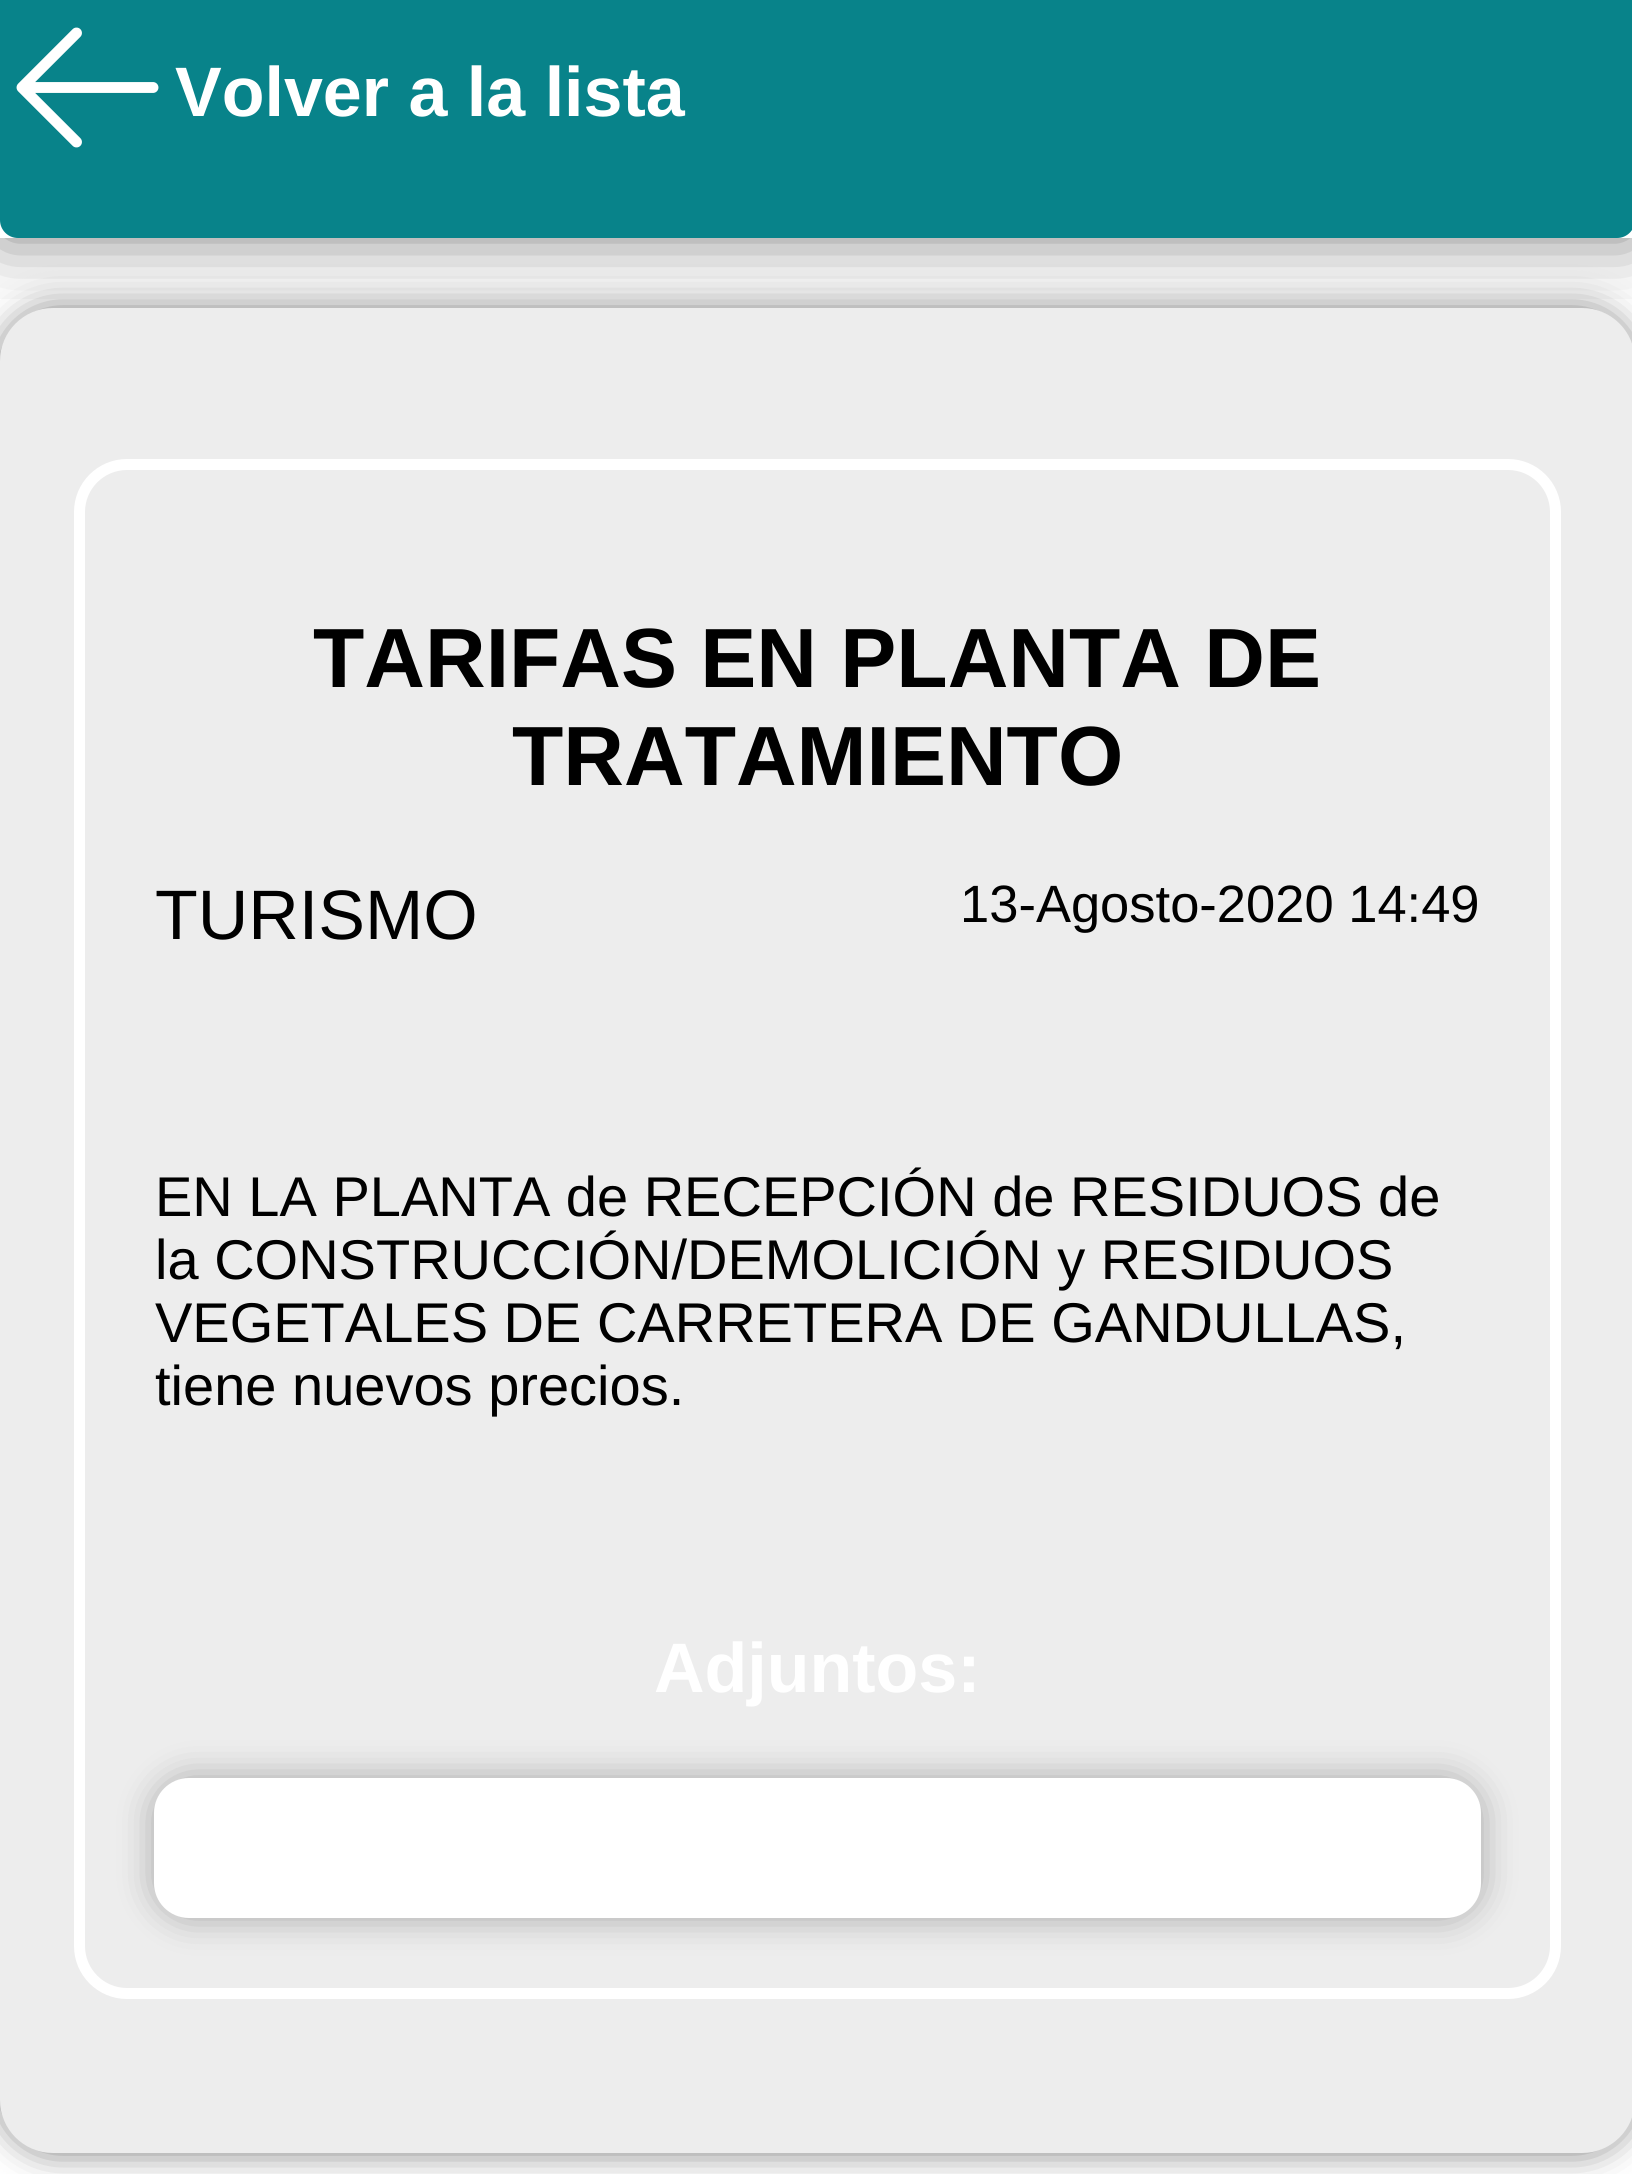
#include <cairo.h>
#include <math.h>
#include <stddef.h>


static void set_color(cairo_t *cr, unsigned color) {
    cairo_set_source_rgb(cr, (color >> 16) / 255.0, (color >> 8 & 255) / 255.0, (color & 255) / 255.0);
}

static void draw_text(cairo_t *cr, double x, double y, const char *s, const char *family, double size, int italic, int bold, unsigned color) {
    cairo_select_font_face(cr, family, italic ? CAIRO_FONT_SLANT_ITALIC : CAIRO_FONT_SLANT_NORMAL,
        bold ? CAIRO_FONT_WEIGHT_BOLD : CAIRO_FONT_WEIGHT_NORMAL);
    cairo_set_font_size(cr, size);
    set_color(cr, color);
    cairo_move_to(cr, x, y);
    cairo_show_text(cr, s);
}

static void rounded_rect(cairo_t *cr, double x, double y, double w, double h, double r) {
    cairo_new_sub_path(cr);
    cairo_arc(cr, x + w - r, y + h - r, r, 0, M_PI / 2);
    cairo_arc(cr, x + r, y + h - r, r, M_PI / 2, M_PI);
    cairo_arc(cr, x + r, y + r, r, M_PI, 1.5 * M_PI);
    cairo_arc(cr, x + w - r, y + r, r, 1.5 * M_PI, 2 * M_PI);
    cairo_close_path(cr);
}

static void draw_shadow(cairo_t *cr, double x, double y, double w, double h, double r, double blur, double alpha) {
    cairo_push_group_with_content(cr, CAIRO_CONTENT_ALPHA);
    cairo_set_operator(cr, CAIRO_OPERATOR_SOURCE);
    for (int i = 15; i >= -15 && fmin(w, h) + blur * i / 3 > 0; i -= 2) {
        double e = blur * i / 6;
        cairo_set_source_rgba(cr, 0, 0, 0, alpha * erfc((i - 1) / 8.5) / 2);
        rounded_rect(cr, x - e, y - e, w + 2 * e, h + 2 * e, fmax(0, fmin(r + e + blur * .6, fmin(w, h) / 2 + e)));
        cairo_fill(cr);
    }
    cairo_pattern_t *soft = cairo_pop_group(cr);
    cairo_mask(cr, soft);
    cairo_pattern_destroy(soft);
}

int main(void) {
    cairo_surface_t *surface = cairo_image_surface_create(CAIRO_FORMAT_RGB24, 1632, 2174);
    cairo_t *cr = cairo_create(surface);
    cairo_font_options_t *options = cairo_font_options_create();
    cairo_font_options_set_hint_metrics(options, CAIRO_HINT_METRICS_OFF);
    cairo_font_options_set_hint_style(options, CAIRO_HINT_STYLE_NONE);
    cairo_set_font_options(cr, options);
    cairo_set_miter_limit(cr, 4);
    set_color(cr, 0xFFFFFF);
    cairo_paint(cr);
    cairo_save(cr);
    cairo_rectangle(cr, 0, 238, 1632, 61);
    cairo_clip(cr);
    set_color(cr, 0x000000);
    draw_shadow(cr, 0, 0, 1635, 238, 0, 35, 0.5);
    cairo_restore(cr);
    set_color(cr, 0x08838A);
    cairo_new_path(cr);
    cairo_move_to(cr, 0, 0);
    cairo_line_to(cr, 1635, 0);
    cairo_line_to(cr, 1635, 220);
    cairo_curve_to(cr, 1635, 230, 1627, 238, 1617, 238);
    cairo_line_to(cr, 18, 238);
    cairo_curve_to(cr, 8, 238, 0, 230, 0, 220);
    cairo_close_path(cr);
    cairo_fill(cr);
    cairo_new_path(cr);
    cairo_move_to(cr, 76.5, 142);
    cairo_line_to(cr, 22, 87.5);
    cairo_move_to(cr, 22, 87.5);
    cairo_line_to(cr, 76.5, 33);
    cairo_move_to(cr, 22, 87.5);
    cairo_line_to(cr, 153, 87.5);
    set_color(cr, 0xFFFFFF);
    cairo_set_line_width(cr, 10.9);
    cairo_set_line_cap(cr, CAIRO_LINE_CAP_ROUND);
    cairo_set_line_join(cr, CAIRO_LINE_JOIN_ROUND);
    cairo_stroke(cr);
    draw_text(cr, 175, 116, "Volver a la lista", "Liberation Sans", 70, 0, 1, 0xFFFFFF);
    set_color(cr, 0x000000);
    draw_shadow(cr, 0, 308, 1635, 1845, 53, 17.5, 0.5);
    set_color(cr, 0xEDEDED);
    rounded_rect(cr, 0, 308, 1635, 1845, 53);
    cairo_fill(cr);
    rounded_rect(cr, 79.5, 464.5, 1476, 1529, 47.5);
    set_color(cr, 0xFFFFFF);
    cairo_set_line_width(cr, 11);
    cairo_set_line_cap(cr, CAIRO_LINE_CAP_BUTT);
    cairo_set_line_join(cr, CAIRO_LINE_JOIN_MITER);
    cairo_stroke(cr);
    draw_text(cr, 313, 687, "TARIFAS EN PLANTA DE", "Liberation Sans", 84, 0, 1, 0x000000);
    draw_text(cr, 512, 785, "TRATAMIENTO", "Liberation Sans", 84, 0, 1, 0x000000);
    draw_text(cr, 155, 939, "TURISMO", "Liberation Sans", 70, 0, 0, 0x000000);
    draw_text(cr, 960, 922, "13-Agosto-2020 14:49", "Liberation Sans", 52.5, 0, 0, 0x000000);
    draw_text(cr, 155, 1216, "EN LA PLANTA de RECEPCIÓN de RESIDUOS de", "Liberation Sans", 56, 0, 0, 0x000000);
    draw_text(cr, 155, 1279, "la CONSTRUCCIÓN/DEMOLICIÓN y RESIDUOS", "Liberation Sans", 56, 0, 0, 0x000000);
    draw_text(cr, 155, 1342, "VEGETALES DE CARRETERA DE GANDULLAS,", "Liberation Sans", 56, 0, 0, 0x000000);
    draw_text(cr, 155, 1405, "tiene nuevos precios.", "Liberation Sans", 56, 0, 0, 0x000000);
    draw_text(cr, 654, 1692, "Adjuntos:", "Liberation Sans", 70, 0, 1, 0xFFFFFF);
    set_color(cr, 0x000000);
    draw_shadow(cr, 154, 1778, 1327, 140, 35, 17.5, 0.3);
    set_color(cr, 0xFFFFFF);
    rounded_rect(cr, 154, 1778, 1327, 140, 35);
    cairo_fill(cr);
    cairo_surface_write_to_png(surface, "output.png");
    cairo_font_options_destroy(options);
    cairo_destroy(cr);
    cairo_surface_destroy(surface);
    return 0;
}
